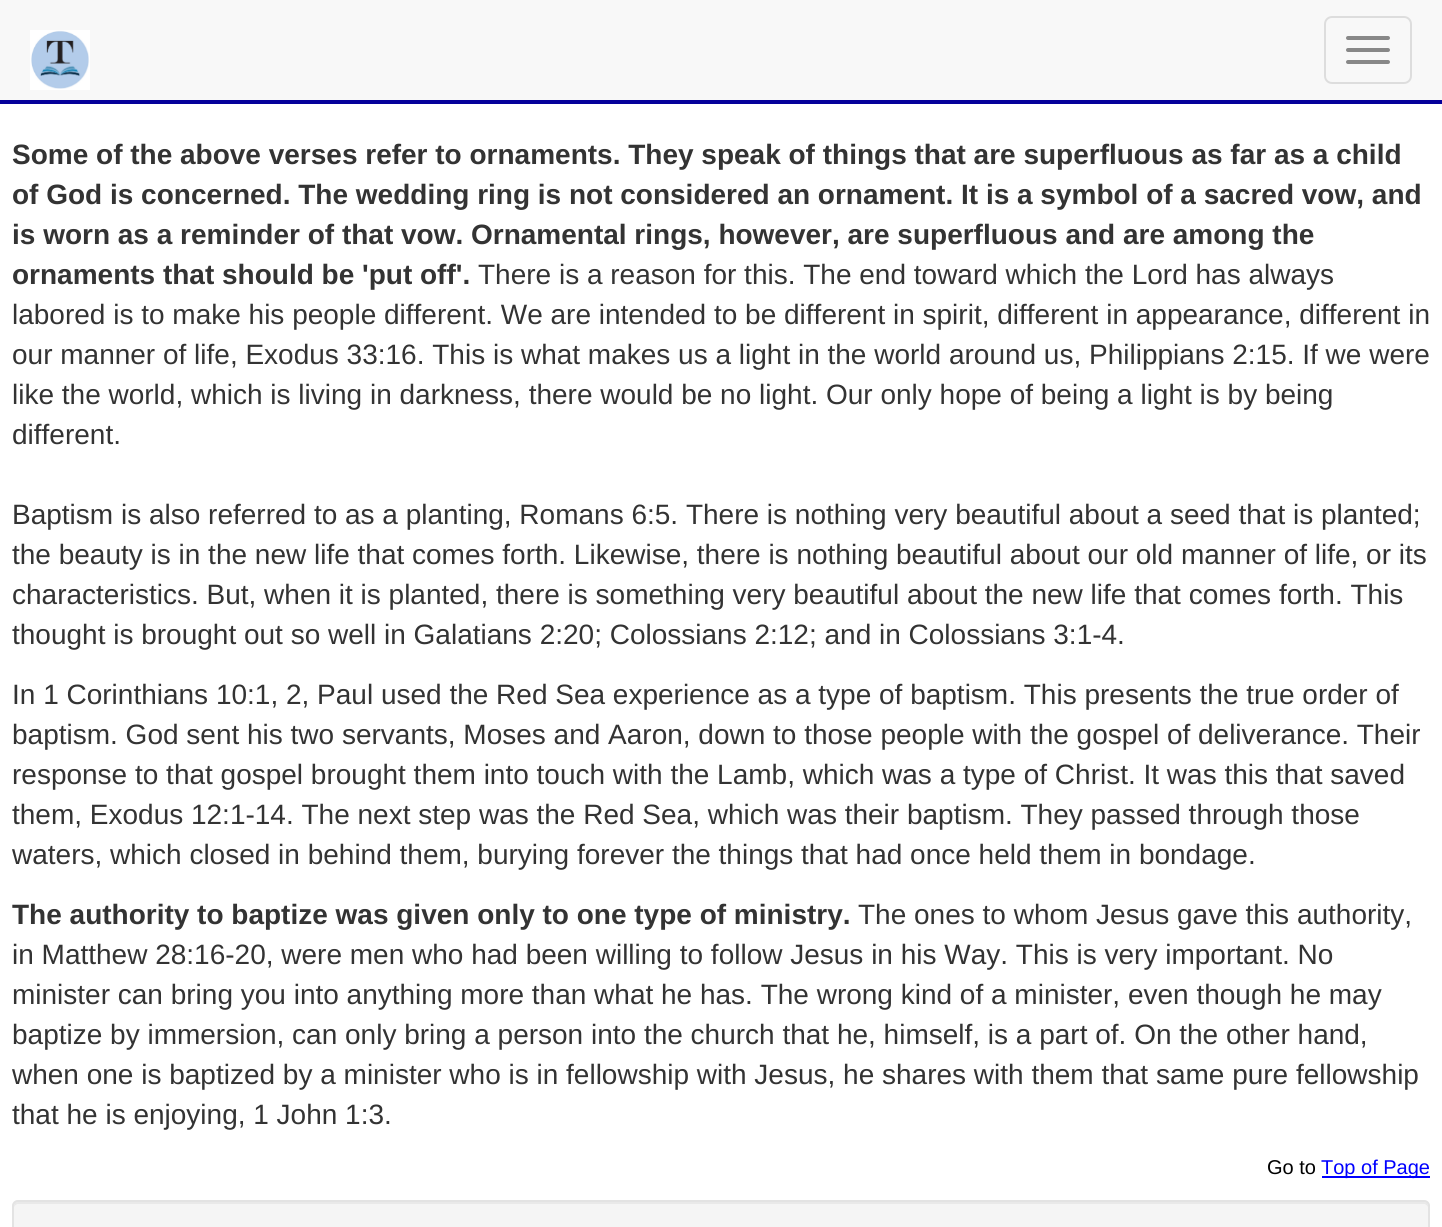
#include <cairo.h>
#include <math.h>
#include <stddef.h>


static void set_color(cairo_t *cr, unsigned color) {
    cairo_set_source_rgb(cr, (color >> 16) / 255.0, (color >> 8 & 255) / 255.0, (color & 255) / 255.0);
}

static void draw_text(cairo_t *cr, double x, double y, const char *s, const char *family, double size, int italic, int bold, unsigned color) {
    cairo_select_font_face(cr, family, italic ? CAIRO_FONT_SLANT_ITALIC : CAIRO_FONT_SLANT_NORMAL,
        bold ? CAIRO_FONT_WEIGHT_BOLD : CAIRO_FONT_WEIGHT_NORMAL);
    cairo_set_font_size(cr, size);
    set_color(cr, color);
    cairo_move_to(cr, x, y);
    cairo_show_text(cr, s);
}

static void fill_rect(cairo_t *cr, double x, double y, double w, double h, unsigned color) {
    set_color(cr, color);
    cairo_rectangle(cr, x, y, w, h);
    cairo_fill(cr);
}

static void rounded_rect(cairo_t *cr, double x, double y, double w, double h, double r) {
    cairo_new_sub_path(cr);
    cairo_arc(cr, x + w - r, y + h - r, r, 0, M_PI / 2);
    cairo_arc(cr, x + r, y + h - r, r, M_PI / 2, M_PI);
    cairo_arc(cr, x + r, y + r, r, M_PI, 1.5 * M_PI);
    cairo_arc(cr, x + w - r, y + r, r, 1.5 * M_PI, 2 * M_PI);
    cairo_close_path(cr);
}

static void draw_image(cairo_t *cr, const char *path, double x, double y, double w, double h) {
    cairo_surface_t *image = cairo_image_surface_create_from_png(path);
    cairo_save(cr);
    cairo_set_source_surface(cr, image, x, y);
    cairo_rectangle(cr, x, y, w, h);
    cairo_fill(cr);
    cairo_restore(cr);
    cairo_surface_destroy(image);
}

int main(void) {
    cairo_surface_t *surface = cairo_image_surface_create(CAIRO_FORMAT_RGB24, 1442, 1227);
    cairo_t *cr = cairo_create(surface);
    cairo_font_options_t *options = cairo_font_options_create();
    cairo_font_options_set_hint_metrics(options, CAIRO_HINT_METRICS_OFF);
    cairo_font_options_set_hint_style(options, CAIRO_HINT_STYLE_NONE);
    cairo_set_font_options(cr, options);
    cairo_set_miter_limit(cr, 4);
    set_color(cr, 0xFFFFFF);
    cairo_paint(cr);
    fill_rect(cr, 0, 0, 1442, 100, 0xF8F8F8);
    fill_rect(cr, 0, 100, 1442, 4, 0x04009A);
    draw_image(cr, "assets/img1.png", 30, 30, 60, 60);
    rounded_rect(cr, 1325, 17, 86, 66, 7);
    set_color(cr, 0xDDDDDD);
    cairo_stroke(cr);
    set_color(cr, 0x888888);
    rounded_rect(cr, 1346, 36, 44, 4, 2);
    cairo_fill(cr);
    rounded_rect(cr, 1346, 48, 44, 4, 2);
    cairo_fill(cr);
    rounded_rect(cr, 1346, 60, 44, 4, 2);
    cairo_fill(cr);
    draw_text(cr, 12, 164, "Some of the above verses refer to ornaments. They speak of things that are superfluous as far as a child", "Liberation Sans", 28, 0, 1, 0x333333);
    draw_text(cr, 12, 204, "of God is concerned. The wedding ring is not considered an ornament. It is a symbol of a sacred vow, and", "Liberation Sans", 28, 0, 1, 0x333333);
    draw_text(cr, 12, 244, "is worn as a reminder of that vow. Ornamental rings, however, are superfluous and are among the", "Liberation Sans", 28, 0, 1, 0x333333);
    draw_text(cr, 12, 284, "ornaments that should be 'put off'.", "Liberation Sans", 28, 0, 1, 0x333333);
    draw_text(cr, 478, 284, "There is a reason for this. The end toward which the Lord has always", "Liberation Sans", 28, 0, 0, 0x333333);
    draw_text(cr, 12, 324, "labored is to make his people different. We are intended to be different in spirit, different in appearance, different in", "Liberation Sans", 28, 0, 0, 0x333333);
    draw_text(cr, 12, 364, "our manner of life, Exodus 33:16. This is what makes us a light in the world around us, Philippians 2:15. If we were", "Liberation Sans", 28, 0, 0, 0x333333);
    draw_text(cr, 12, 404, "like the world, which is living in darkness, there would be no light. Our only hope of being a light is by being", "Liberation Sans", 28, 0, 0, 0x333333);
    draw_text(cr, 12, 444, "different.", "Liberation Sans", 28, 0, 0, 0x333333);
    draw_text(cr, 12, 524, "Baptism is also referred to as a planting, Romans 6:5. There is nothing very beautiful about a seed that is planted;", "Liberation Sans", 28, 0, 0, 0x333333);
    draw_text(cr, 12, 564, "the beauty is in the new life that comes forth. Likewise, there is nothing beautiful about our old manner of life, or its", "Liberation Sans", 28, 0, 0, 0x333333);
    draw_text(cr, 12, 604, "characteristics. But, when it is planted, there is something very beautiful about the new life that comes forth. This", "Liberation Sans", 28, 0, 0, 0x333333);
    draw_text(cr, 12, 644, "thought is brought out so well in Galatians 2:20; Colossians 2:12; and in Colossians 3:1-4.", "Liberation Sans", 28, 0, 0, 0x333333);
    draw_text(cr, 12, 704, "In 1 Corinthians 10:1, 2, Paul used the Red Sea experience as a type of baptism. This presents the true order of", "Liberation Sans", 28, 0, 0, 0x333333);
    draw_text(cr, 12, 744, "baptism. God sent his two servants, Moses and Aaron, down to those people with the gospel of deliverance. Their", "Liberation Sans", 28, 0, 0, 0x333333);
    draw_text(cr, 12, 784, "response to that gospel brought them into touch with the Lamb, which was a type of Christ. It was this that saved", "Liberation Sans", 28, 0, 0, 0x333333);
    draw_text(cr, 12, 824, "them, Exodus 12:1-14. The next step was the Red Sea, which was their baptism. They passed through those", "Liberation Sans", 28, 0, 0, 0x333333);
    draw_text(cr, 12, 864, "waters, which closed in behind them, burying forever the things that had once held them in bondage.", "Liberation Sans", 28, 0, 0, 0x333333);
    draw_text(cr, 12, 924, "The authority to baptize was given only to one type of ministry.", "Liberation Sans", 28, 0, 1, 0x333333);
    draw_text(cr, 858, 924, "The ones to whom Jesus gave this authority,", "Liberation Sans", 28, 0, 0, 0x333333);
    draw_text(cr, 12, 964, "in Matthew 28:16-20, were men who had been willing to follow Jesus in his Way. This is very important. No", "Liberation Sans", 28, 0, 0, 0x333333);
    draw_text(cr, 12, 1004, "minister can bring you into anything more than what he has. The wrong kind of a minister, even though he may", "Liberation Sans", 28, 0, 0, 0x333333);
    draw_text(cr, 12, 1044, "baptize by immersion, can only bring a person into the church that he, himself, is a part of. On the other hand,", "Liberation Sans", 28, 0, 0, 0x333333);
    draw_text(cr, 12, 1084, "when one is baptized by a minister who is in fellowship with Jesus, he shares with them that same pure fellowship", "Liberation Sans", 28, 0, 0, 0x333333);
    draw_text(cr, 12, 1124, "that he is enjoying, 1 John 1:3.", "Liberation Sans", 28, 0, 0, 0x333333);
    draw_text(cr, 1267, 1174, "Go to", "Liberation Sans", 20, 0, 0, 0x000000);
    fill_rect(cr, 1322, 1176, 108, 2, 0x0000FF);
    draw_text(cr, 1321, 1174, "Top of Page", "Liberation Sans", 20, 0, 0, 0x0000FF);
    set_color(cr, 0xF5F5F5);
    rounded_rect(cr, 12, 1200, 1418, 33, 6);
    cairo_fill(cr);
    set_color(cr, 0xE9E9E9);
    cairo_new_path(cr);
    cairo_move_to(cr, 18, 1204);
    cairo_line_to(cr, 1424, 1204);
    cairo_curve_to(cr, 1426, 1204, 1428, 1206, 1428, 1208);
    cairo_curve_to(cr, 1428, 1205, 1428, 1202, 1424, 1202);
    cairo_line_to(cr, 18, 1202);
    cairo_curve_to(cr, 14, 1202, 14, 1205, 14, 1208);
    cairo_curve_to(cr, 14, 1206, 16, 1204, 18, 1204);
    cairo_close_path(cr);
    cairo_fill(cr);
    rounded_rect(cr, 13, 1201, 1416, 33, 5);
    set_color(cr, 0xE3E3E3);
    cairo_stroke(cr);
    cairo_surface_write_to_png(surface, "output.png");
    cairo_font_options_destroy(options);
    cairo_destroy(cr);
    cairo_surface_destroy(surface);
    return 0;
}
